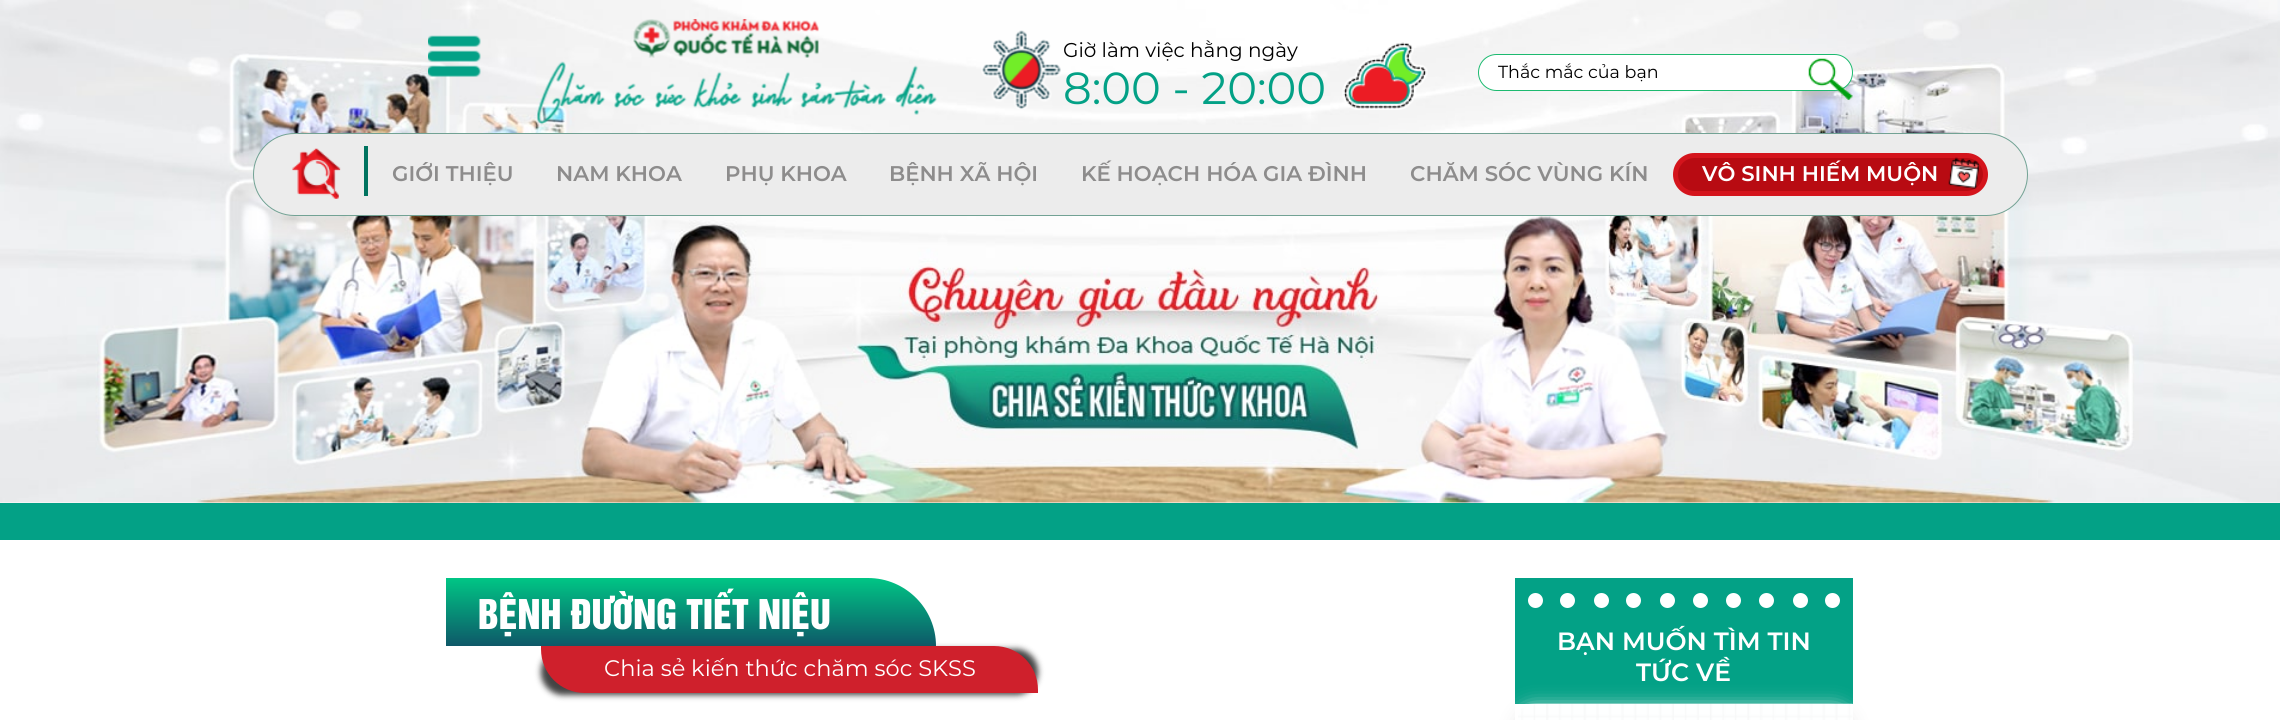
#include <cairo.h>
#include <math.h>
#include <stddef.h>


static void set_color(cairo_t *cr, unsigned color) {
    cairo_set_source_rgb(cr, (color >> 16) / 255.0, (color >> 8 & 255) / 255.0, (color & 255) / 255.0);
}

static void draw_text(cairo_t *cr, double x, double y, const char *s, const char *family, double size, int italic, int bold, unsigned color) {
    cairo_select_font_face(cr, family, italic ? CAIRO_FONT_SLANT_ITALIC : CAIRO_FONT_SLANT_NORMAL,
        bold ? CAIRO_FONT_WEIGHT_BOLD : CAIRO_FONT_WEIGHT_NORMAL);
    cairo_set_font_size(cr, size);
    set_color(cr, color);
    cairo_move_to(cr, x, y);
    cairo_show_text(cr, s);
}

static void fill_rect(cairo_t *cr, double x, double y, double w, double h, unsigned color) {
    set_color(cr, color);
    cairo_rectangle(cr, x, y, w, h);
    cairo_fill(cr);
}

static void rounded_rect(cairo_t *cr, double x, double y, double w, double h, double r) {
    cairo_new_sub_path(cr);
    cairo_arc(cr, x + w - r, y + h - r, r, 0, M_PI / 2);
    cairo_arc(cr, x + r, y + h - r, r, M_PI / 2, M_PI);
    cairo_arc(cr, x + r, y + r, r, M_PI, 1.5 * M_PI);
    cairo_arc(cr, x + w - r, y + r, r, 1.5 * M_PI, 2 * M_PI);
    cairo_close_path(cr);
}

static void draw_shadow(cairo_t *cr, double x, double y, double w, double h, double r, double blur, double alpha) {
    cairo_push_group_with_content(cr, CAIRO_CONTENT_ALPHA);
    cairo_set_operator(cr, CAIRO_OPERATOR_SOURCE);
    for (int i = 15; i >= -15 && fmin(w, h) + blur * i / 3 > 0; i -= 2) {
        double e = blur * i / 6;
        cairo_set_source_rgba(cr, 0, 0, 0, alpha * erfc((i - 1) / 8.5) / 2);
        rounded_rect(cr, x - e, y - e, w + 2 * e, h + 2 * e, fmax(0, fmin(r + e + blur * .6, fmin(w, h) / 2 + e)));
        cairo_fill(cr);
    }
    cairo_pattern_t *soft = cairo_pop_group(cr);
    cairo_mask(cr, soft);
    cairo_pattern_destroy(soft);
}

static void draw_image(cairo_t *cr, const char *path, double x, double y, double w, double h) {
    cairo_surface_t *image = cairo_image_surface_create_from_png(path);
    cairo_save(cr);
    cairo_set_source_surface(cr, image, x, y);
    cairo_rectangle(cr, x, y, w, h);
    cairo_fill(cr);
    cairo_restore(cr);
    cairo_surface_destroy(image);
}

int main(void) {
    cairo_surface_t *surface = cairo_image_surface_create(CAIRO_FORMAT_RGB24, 2280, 720);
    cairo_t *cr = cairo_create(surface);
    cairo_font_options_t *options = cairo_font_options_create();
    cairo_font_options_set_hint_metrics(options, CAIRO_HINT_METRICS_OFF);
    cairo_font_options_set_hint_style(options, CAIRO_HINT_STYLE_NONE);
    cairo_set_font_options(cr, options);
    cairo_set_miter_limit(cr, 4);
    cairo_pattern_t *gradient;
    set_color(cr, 0xFFFFFF);
    cairo_paint(cr);
    draw_image(cr, "assets/img8.png", 0, 0, 2280, 503);
    draw_image(cr, "assets/img1.png", 428, 35, 53, 42);
    draw_image(cr, "assets/img2.png", 537, 19, 400, 106);
    draw_image(cr, "assets/img3.png", 981, 30, 80, 79);
    draw_text(cr, 1063, 57, "Giờ làm việc hằng ngày", "Montserrat", 20, 0, 0, 0x000000);
    draw_text(cr, 1063, 104, "8:00 - 20:00", "Montserrat", 45, 0, 0, 0x03A186);
    draw_image(cr, "assets/img4.png", 1342, 42, 86, 68);
    set_color(cr, 0xFFFFFF);
    rounded_rect(cr, 1478.5, 54.5, 374, 36, 18);
    cairo_fill_preserve(cr);
    set_color(cr, 0x1DBA70);
    cairo_set_line_width(cr, 1);
    cairo_stroke(cr);
    draw_text(cr, 1498, 78, "Thắc mắc của bạn", "Montserrat", 17.5, 0, 0, 0x000000);
    draw_image(cr, "assets/img5.png", 1808, 58, 45, 42);
    set_color(cr, 0xECECEC);
    rounded_rect(cr, 253.5, 133.5, 1774, 82, 41);
    cairo_fill_preserve(cr);
    set_color(cr, 0x72A294);
    cairo_stroke(cr);
    draw_image(cr, "assets/img6.png", 292, 148, 49, 51);
    fill_rect(cr, 364, 146, 4, 50, 0x00735F);
    draw_text(cr, 392, 181, "GIỚI THIỆU", "Montserrat SemiBold", 21.25, 0, 0, 0x8D8C8C);
    draw_text(cr, 556, 181, "NAM KHOA", "Montserrat SemiBold", 21.25, 0, 0, 0x8D8C8C);
    draw_text(cr, 725, 181, "PHỤ KHOA", "Montserrat SemiBold", 21.25, 0, 0, 0x8D8C8C);
    draw_text(cr, 889, 181, "BỆNH XÃ HỘI", "Montserrat SemiBold", 21.25, 0, 0, 0x8D8C8C);
    draw_text(cr, 1081, 181, "KẾ HOẠCH HÓA GIA ĐÌNH", "Montserrat SemiBold", 21.25, 0, 0, 0x8D8C8C);
    draw_text(cr, 1410, 181, "CHĂM SÓC VÙNG KÍN", "Montserrat SemiBold", 21.25, 0, 0, 0x8D8C8C);
    set_color(cr, 0xB80B12);
    rounded_rect(cr, 1675.5, 155.5, 310, 38, 19);
    cairo_fill_preserve(cr);
    set_color(cr, 0xD4141C);
    cairo_set_line_width(cr, 5);
    cairo_stroke(cr);
    draw_text(cr, 1702, 181, "VÔ SINH HIẾM MUỘN", "Montserrat SemiBold", 21.25, 0, 0, 0xFFFFFF);
    draw_image(cr, "assets/img7.png", 1948, 157, 31, 32);
    fill_rect(cr, 0, 503, 2280, 37, 0x03A186);
    gradient = cairo_pattern_create_linear(691, 578, 691, 646);
    cairo_pattern_add_color_stop_rgba(gradient, 0, 0, 0.776, 0.522, 1);
    cairo_pattern_add_color_stop_rgba(gradient, 1, 0.055, 0.345, 0.408, 1);
    cairo_set_source(cr, gradient);
    cairo_pattern_destroy(gradient);
    cairo_new_path(cr);
    cairo_move_to(cr, 446, 578);
    cairo_line_to(cr, 868, 578);
    cairo_curve_to(cr, 905.5, 578, 936, 608.5, 936, 646);
    cairo_line_to(cr, 446, 646);
    cairo_close_path(cr);
    cairo_fill(cr);
    draw_text(cr, 478, 629, "BỆNH ĐƯỜNG TIẾT NIỆU", "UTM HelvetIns", 37.5, 0, 0, 0xFFFFFF);
    set_color(cr, 0x444444);
    draw_shadow(cr, 541, 649, 497, 46, 44, 3, 1);
    set_color(cr, 0xCF202C);
    cairo_new_path(cr);
    cairo_move_to(cr, 541, 646);
    cairo_line_to(cr, 994, 646);
    cairo_curve_to(cr, 1018.5, 646, 1038, 665.5, 1038, 690);
    cairo_line_to(cr, 1038, 693);
    cairo_line_to(cr, 585, 693);
    cairo_curve_to(cr, 560.5, 693, 541, 673.5, 541, 649);
    cairo_close_path(cr);
    cairo_fill(cr);
    draw_text(cr, 604, 676, "Chia sẻ kiến thức chăm sóc SKSS", "Montserrat", 22.5, 0, 0, 0xFFFFFF);
    fill_rect(cr, 1515, 578, 338, 126, 0x03A186);
    set_color(cr, 0xFFFFFF);
    cairo_new_path(cr);
    cairo_arc(cr, 1535.5, 600.5, 7.5, 0, 2 * M_PI);
    cairo_fill(cr);
    cairo_arc(cr, 1567.5, 600.5, 7.5, 0, 2 * M_PI);
    cairo_fill(cr);
    cairo_arc(cr, 1601.5, 600.5, 7.5, 0, 2 * M_PI);
    cairo_fill(cr);
    cairo_arc(cr, 1633.5, 600.5, 7.5, 0, 2 * M_PI);
    cairo_fill(cr);
    cairo_arc(cr, 1667.5, 600.5, 7.5, 0, 2 * M_PI);
    cairo_fill(cr);
    cairo_arc(cr, 1700.5, 600.5, 7.5, 0, 2 * M_PI);
    cairo_fill(cr);
    cairo_arc(cr, 1733.5, 600.5, 7.5, 0, 2 * M_PI);
    cairo_fill(cr);
    cairo_arc(cr, 1766.5, 600.5, 7.5, 0, 2 * M_PI);
    cairo_fill(cr);
    cairo_arc(cr, 1800.5, 600.5, 7.5, 0, 2 * M_PI);
    cairo_fill(cr);
    cairo_arc(cr, 1832.5, 600.5, 7.5, 0, 2 * M_PI);
    cairo_fill(cr);
    draw_text(cr, 1557, 650, "BẠN MUỐN TÌM TIN", "Montserrat SemiBold", 25, 0, 0, 0xFFFFFF);
    cairo_save(cr);
    cairo_set_fill_rule(cr, CAIRO_FILL_RULE_EVEN_ODD);
    cairo_new_path(cr);
    cairo_move_to(cr, 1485, 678);
    cairo_line_to(cr, 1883, 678);
    cairo_line_to(cr, 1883, 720);
    cairo_line_to(cr, 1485, 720);
    cairo_close_path(cr);
    cairo_move_to(cr, 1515, 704);
    cairo_line_to(cr, 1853, 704);
    cairo_line_to(cr, 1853, 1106);
    cairo_curve_to(cr, 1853, 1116.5, 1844.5, 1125, 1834, 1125);
    cairo_line_to(cr, 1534, 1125);
    cairo_curve_to(cr, 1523.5, 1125, 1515, 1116.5, 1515, 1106);
    cairo_close_path(cr);
    cairo_clip(cr);
    set_color(cr, 0xEAEAEA);
    draw_shadow(cr, 1515, 708, 338, 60, 19, 9.5, 1);
    cairo_restore(cr);
    draw_text(cr, 1636, 681, "TỨC VỀ", "Montserrat SemiBold", 25, 0, 0, 0xFFFFFF);
    draw_image(cr, "assets/img9.png", 1518, 703, 335, 17);
    cairo_surface_write_to_png(surface, "output.png");
    cairo_font_options_destroy(options);
    cairo_destroy(cr);
    cairo_surface_destroy(surface);
    return 0;
}
